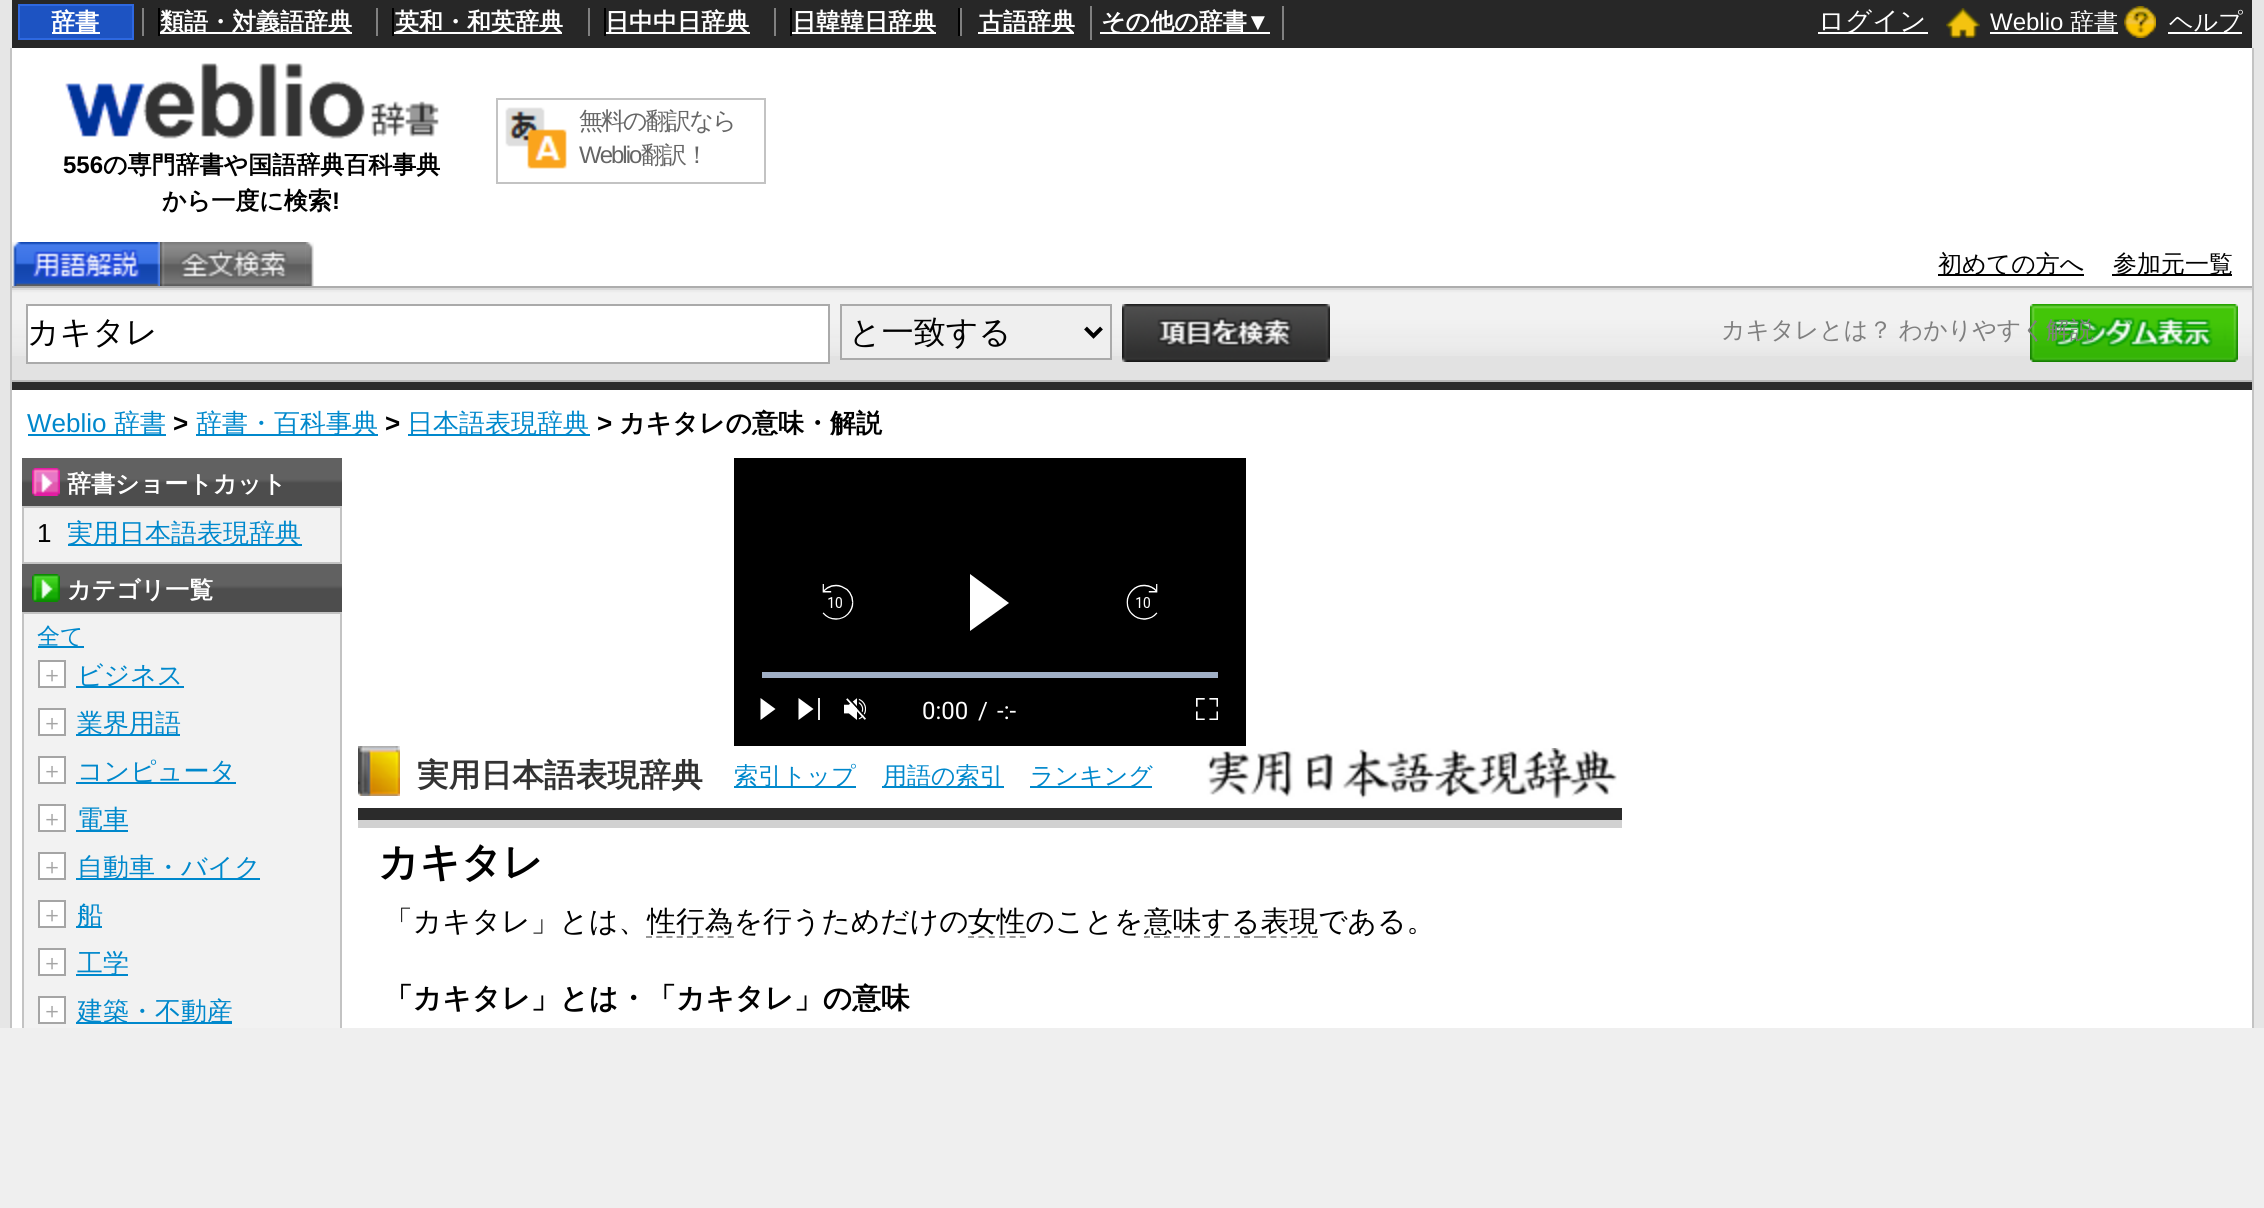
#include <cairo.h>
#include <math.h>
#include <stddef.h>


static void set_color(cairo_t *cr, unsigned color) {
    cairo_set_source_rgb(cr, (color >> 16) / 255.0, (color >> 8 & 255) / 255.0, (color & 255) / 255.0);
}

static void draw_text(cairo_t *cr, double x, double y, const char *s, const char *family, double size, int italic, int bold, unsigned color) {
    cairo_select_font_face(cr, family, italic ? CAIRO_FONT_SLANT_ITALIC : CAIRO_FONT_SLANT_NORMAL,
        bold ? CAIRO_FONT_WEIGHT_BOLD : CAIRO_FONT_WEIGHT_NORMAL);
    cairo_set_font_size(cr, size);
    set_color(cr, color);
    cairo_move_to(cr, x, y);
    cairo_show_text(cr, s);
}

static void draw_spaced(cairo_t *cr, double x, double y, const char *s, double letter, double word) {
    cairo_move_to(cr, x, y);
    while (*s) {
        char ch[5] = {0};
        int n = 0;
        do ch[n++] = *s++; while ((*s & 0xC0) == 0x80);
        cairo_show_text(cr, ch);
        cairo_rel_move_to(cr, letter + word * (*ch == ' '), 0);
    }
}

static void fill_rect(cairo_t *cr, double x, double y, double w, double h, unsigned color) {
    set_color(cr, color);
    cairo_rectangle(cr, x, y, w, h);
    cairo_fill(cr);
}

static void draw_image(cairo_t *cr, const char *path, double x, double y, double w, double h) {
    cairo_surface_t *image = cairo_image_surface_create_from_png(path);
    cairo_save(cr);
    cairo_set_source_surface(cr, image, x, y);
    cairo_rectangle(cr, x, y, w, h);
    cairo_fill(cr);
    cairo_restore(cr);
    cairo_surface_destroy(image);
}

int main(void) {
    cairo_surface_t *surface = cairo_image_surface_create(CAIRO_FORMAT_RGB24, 2264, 1208);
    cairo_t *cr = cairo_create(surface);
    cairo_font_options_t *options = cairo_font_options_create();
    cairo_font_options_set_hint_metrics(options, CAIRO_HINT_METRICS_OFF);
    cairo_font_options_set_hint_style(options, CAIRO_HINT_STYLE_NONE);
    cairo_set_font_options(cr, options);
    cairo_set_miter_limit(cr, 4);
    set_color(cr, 0xE6E6E6);
    cairo_paint(cr);
    fill_rect(cr, 12, 0, 2240, 48, 0x272727);
    set_color(cr, 0x1D53C2);
    cairo_rectangle(cr, 19, 5, 114, 34);
    cairo_fill_preserve(cr);
    set_color(cr, 0x2E68E0);
    cairo_stroke(cr);
    fill_rect(cr, 52, 32, 48, 2, 0xFFFFFF);
    draw_text(cr, 51, 30, "辞書", "WenQuanYi Zen Hei", 24, 0, 1, 0xFFFFFF);
    fill_rect(cr, 160, 32, 192, 2, 0xFFFFFF);
    draw_text(cr, 160, 30, "類語・対義語辞典", "WenQuanYi Zen Hei", 24, 0, 1, 0xFFFFFF);
    fill_rect(cr, 158, 8, 2, 28, 0x000000);
    fill_rect(cr, 142, 8, 2, 28, 0x808080);
    fill_rect(cr, 394, 32, 168, 2, 0xFFFFFF);
    draw_text(cr, 395, 30, "英和・和英辞典", "WenQuanYi Zen Hei", 24, 0, 1, 0xFFFFFF);
    fill_rect(cr, 392, 8, 2, 28, 0x000000);
    fill_rect(cr, 376, 8, 2, 28, 0x808080);
    fill_rect(cr, 606, 32, 144, 2, 0xFFFFFF);
    draw_text(cr, 605, 30, "日中中日辞典", "WenQuanYi Zen Hei", 24, 0, 1, 0xFFFFFF);
    fill_rect(cr, 604, 8, 2, 28, 0x000000);
    fill_rect(cr, 588, 8, 2, 28, 0x808080);
    fill_rect(cr, 792, 32, 144, 2, 0xFFFFFF);
    draw_text(cr, 792, 30, "日韓韓日辞典", "WenQuanYi Zen Hei", 24, 0, 1, 0xFFFFFF);
    fill_rect(cr, 790, 8, 2, 28, 0x000000);
    fill_rect(cr, 774, 8, 2, 28, 0x808080);
    fill_rect(cr, 978, 32, 96, 2, 0xFFFFFF);
    draw_text(cr, 979, 30, "古語辞典", "WenQuanYi Zen Hei", 24, 0, 1, 0xFFFFFF);
    fill_rect(cr, 958, 8, 2, 28, 0x000000);
    fill_rect(cr, 960, 8, 2, 28, 0x808080);
    fill_rect(cr, 1282, 6, 2, 34, 0x808080);
    fill_rect(cr, 1090, 6, 2, 34, 0x808080);
    fill_rect(cr, 1100, 32, 170, 2, 0xFFFFFF);
    draw_text(cr, 1101, 30, "その他の辞書", "WenQuanYi Zen Hei", 24, 0, 1, 0xFFFFFF);
    draw_text(cr, 1246, 30, "▼", "Liberation Sans", 24, 0, 1, 0xFFFFFF);
    fill_rect(cr, 1818, 32, 110, 2, 0xFFFFFF);
    draw_text(cr, 1818, 30, "ログイン", "WenQuanYi Zen Hei Medium", 26.5, 0, 0, 0xFFFFFF);
    draw_image(cr, "assets/img1.png", 1946, 8, 34, 30);
    draw_text(cr, 1990, 30, "Weblio", "Liberation Sans", 24, 0, 0, 0xFFFFFF);
    fill_rect(cr, 1990, 32, 128, 2, 0xFFFFFF);
    draw_text(cr, 2070, 30, "辞書", "WenQuanYi Zen Hei Medium", 24, 0, 0, 0xFFFFFF);
    draw_image(cr, "assets/img2.png", 2124, 6, 32, 32);
    fill_rect(cr, 2168, 32, 74, 2, 0xFFFFFF);
    draw_text(cr, 2169, 30, "ヘルプ", "WenQuanYi Zen Hei Medium", 24, 0, 0, 0xFFFFFF);
    fill_rect(cr, 12, 48, 2240, 980, 0xFFFFFF);
    fill_rect(cr, 2252, 48, 2, 980, 0xC3C3C3);
    fill_rect(cr, 10, 48, 2, 980, 0xC3C3C3);
    fill_rect(cr, 496, 98, 270, 2, 0xC3C3C3);
    fill_rect(cr, 764, 98, 2, 86, 0xC3C3C3);
    fill_rect(cr, 496, 182, 270, 2, 0xC3C3C3);
    fill_rect(cr, 496, 98, 2, 86, 0xC3C3C3);
    draw_image(cr, "assets/img3.png", 505, 107, 62, 62);
    set_color(cr, 0x666666);
    draw_spaced(cr, 579, 129, "無料の翻訳なら", -2, 0);
    cairo_select_font_face(cr, "Liberation Sans", CAIRO_FONT_SLANT_NORMAL, CAIRO_FONT_WEIGHT_NORMAL);
    draw_spaced(cr, 579, 163, "Weblio", -2, 0);
    cairo_select_font_face(cr, "WenQuanYi Zen Hei Medium", CAIRO_FONT_SLANT_NORMAL, CAIRO_FONT_WEIGHT_NORMAL);
    draw_spaced(cr, 641, 163, "翻訳！", -2, 0);
    draw_image(cr, "assets/img4.png", 65, 63, 374, 76);
    draw_text(cr, 63, 173, "556", "Liberation Sans", 24, 0, 1, 0x000000);
    draw_text(cr, 103, 173, "の専門辞書や国語辞典百科事典", "WenQuanYi Zen Hei", 24, 0, 1, 0x000000);
    draw_text(cr, 162, 209, "から一度に検索", "WenQuanYi Zen Hei", 24, 0, 1, 0x000000);
    draw_text(cr, 332, 209, "!", "Liberation Sans", 24, 0, 1, 0x000000);
    fill_rect(cr, 12, 286, 2240, 2, 0xADADAD);
    draw_image(cr, "assets/img5.png", 12, 242, 148, 44);
    draw_image(cr, "assets/img6.png", 160, 242, 146, 44);
    draw_image(cr, "assets/img7.png", 306, 242, 8, 44);
    fill_rect(cr, 1938, 274, 146, 2, 0x000000);
    draw_text(cr, 1938, 272, "初めての方へ", "WenQuanYi Zen Hei Medium", 24, 0, 0, 0x000000);
    fill_rect(cr, 2112, 274, 120, 2, 0x000000);
    draw_text(cr, 2113, 272, "参加元一覧", "WenQuanYi Zen Hei Medium", 24, 0, 0, 0x000000);
    fill_rect(cr, 12, 356, 2240, 24, 0xE2E2E2);
    draw_image(cr, "assets/img8.png", 12, 290, 2240, 66);
    fill_rect(cr, 12, 288, 2240, 2, 0xD9D9D9);
    fill_rect(cr, 12, 380, 2240, 2, 0xB9B9B9);
    set_color(cr, 0xFFFFFF);
    cairo_rectangle(cr, 27, 305, 802, 58);
    cairo_fill_preserve(cr);
    set_color(cr, 0xAAAAAA);
    cairo_stroke(cr);
    draw_text(cr, 27, 343, "カキタレ", "WenQuanYi Zen Hei Medium", 32, 0, 0, 0x000000);
    set_color(cr, 0xEFEFEF);
    cairo_rectangle(cr, 841, 305, 270, 54);
    cairo_fill_preserve(cr);
    set_color(cr, 0xAAAAAA);
    cairo_stroke(cr);
    cairo_new_path(cr);
    cairo_move_to(cr, 1085.5, 328);
    cairo_line_to(cr, 1093.5, 336);
    cairo_line_to(cr, 1101.5, 328);
    set_color(cr, 0x000000);
    cairo_set_line_width(cr, 4);
    cairo_stroke(cr);
    draw_text(cr, 849, 343, "と一致する", "WenQuanYi Zen Hei Medium", 32, 0, 0, 0x000000);
    draw_image(cr, "assets/img9.png", 1122, 304, 208, 58);
    draw_image(cr, "assets/img10.png", 2030, 304, 208, 58);
    fill_rect(cr, 12, 382, 2240, 8, 0x2B2B2B);
    draw_text(cr, 27, 432, "Weblio", "Liberation Sans", 26, 0, 0, 0x0088CC);
    fill_rect(cr, 28, 434, 138, 2, 0x0088CC);
    draw_text(cr, 114, 432, "辞書", "WenQuanYi Zen Hei Medium", 26, 0, 0, 0x0088CC);
    draw_text(cr, 173, 432, ">", "Liberation Sans", 26, 0, 1, 0x000000);
    fill_rect(cr, 196, 434, 182, 2, 0x0088CC);
    draw_text(cr, 196, 432, "辞書・百科事典", "WenQuanYi Zen Hei Medium", 26, 0, 0, 0x0088CC);
    draw_text(cr, 385, 432, ">", "Liberation Sans", 26, 0, 1, 0x000000);
    fill_rect(cr, 408, 434, 182, 2, 0x0088CC);
    draw_text(cr, 407, 432, "日本語表現辞典", "WenQuanYi Zen Hei Medium", 26, 0, 0, 0x0088CC);
    draw_text(cr, 597, 432, ">", "Liberation Sans", 26, 0, 1, 0x000000);
    draw_text(cr, 619, 432, "カキタレの意味・解説", "WenQuanYi Zen Hei", 26, 0, 1, 0x000000);
    draw_image(cr, "assets/img11.png", 22, 458, 320, 48);
    draw_image(cr, "assets/img12.png", 32, 468, 28, 28);
    draw_text(cr, 67, 492, "辞書ショートカット", "WenQuanYi Zen Hei", 24, 0, 1, 0xFFFFFF);
    set_color(cr, 0xF2F2F2);
    cairo_rectangle(cr, 23, 507, 318, 56);
    cairo_fill_preserve(cr);
    set_color(cr, 0xC3C3C3);
    cairo_set_line_width(cr, 2);
    cairo_stroke(cr);
    draw_text(cr, 37, 542, "1", "Liberation Sans", 26, 0, 0, 0x000000);
    fill_rect(cr, 68, 544, 234, 2, 0x0088CC);
    draw_text(cr, 67, 542, "実用日本語表現辞典", "WenQuanYi Zen Hei Medium", 26, 0, 0, 0x0088CC);
    draw_image(cr, "assets/img11.png", 22, 564, 320, 48);
    draw_image(cr, "assets/img13.png", 32, 574, 28, 28);
    draw_text(cr, 67, 598, "カテゴリ一覧", "WenQuanYi Zen Hei", 24, 0, 1, 0xFFFFFF);
    fill_rect(cr, 24, 614, 316, 414, 0xF2F2F2);
    cairo_rectangle(cr, 23, 613, 318, 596);
    set_color(cr, 0xC3C3C3);
    cairo_stroke(cr);
    fill_rect(cr, 38, 646, 46, 2, 0x0088CC);
    draw_text(cr, 37, 644, "全て", "WenQuanYi Zen Hei Medium", 23, 0, 0, 0x0088CC);
    set_color(cr, 0xFFFFFF);
    cairo_rectangle(cr, 39, 661, 26, 26);
    cairo_fill_preserve(cr);
    set_color(cr, 0xA5A5A5);
    cairo_stroke(cr);
    draw_text(cr, 41, 682, "＋", "WenQuanYi Zen Hei Medium", 22, 0, 0, 0xA5A5A5);
    fill_rect(cr, 76, 686, 108, 2, 0x0088CC);
    draw_text(cr, 77, 684, "ビジネス", "WenQuanYi Zen Hei Medium", 26, 0, 0, 0x0088CC);
    set_color(cr, 0xFFFFFF);
    cairo_rectangle(cr, 39, 709, 26, 26);
    cairo_fill_preserve(cr);
    set_color(cr, 0xA5A5A5);
    cairo_stroke(cr);
    draw_text(cr, 41, 730, "＋", "WenQuanYi Zen Hei Medium", 22, 0, 0, 0xA5A5A5);
    fill_rect(cr, 76, 734, 104, 2, 0x0088CC);
    draw_text(cr, 77, 732, "業界用語", "WenQuanYi Zen Hei Medium", 26, 0, 0, 0x0088CC);
    set_color(cr, 0xFFFFFF);
    cairo_rectangle(cr, 39, 757, 26, 26);
    cairo_fill_preserve(cr);
    set_color(cr, 0xA5A5A5);
    cairo_stroke(cr);
    draw_text(cr, 41, 778, "＋", "WenQuanYi Zen Hei Medium", 22, 0, 0, 0xA5A5A5);
    fill_rect(cr, 76, 782, 160, 2, 0x0088CC);
    draw_text(cr, 77, 780, "コンピュータ", "WenQuanYi Zen Hei Medium", 26, 0, 0, 0x0088CC);
    set_color(cr, 0xFFFFFF);
    cairo_rectangle(cr, 39, 805, 26, 26);
    cairo_fill_preserve(cr);
    set_color(cr, 0xA5A5A5);
    cairo_stroke(cr);
    draw_text(cr, 41, 826, "＋", "WenQuanYi Zen Hei Medium", 22, 0, 0, 0xA5A5A5);
    fill_rect(cr, 76, 830, 52, 2, 0x0088CC);
    draw_text(cr, 77, 828, "電車", "WenQuanYi Zen Hei Medium", 26, 0, 0, 0x0088CC);
    set_color(cr, 0xFFFFFF);
    cairo_rectangle(cr, 39, 853, 26, 26);
    cairo_fill_preserve(cr);
    set_color(cr, 0xA5A5A5);
    cairo_stroke(cr);
    draw_text(cr, 41, 874, "＋", "WenQuanYi Zen Hei Medium", 22, 0, 0, 0xA5A5A5);
    fill_rect(cr, 76, 878, 184, 2, 0x0088CC);
    draw_text(cr, 77, 876, "自動車・バイク", "WenQuanYi Zen Hei Medium", 26, 0, 0, 0x0088CC);
    set_color(cr, 0xFFFFFF);
    cairo_rectangle(cr, 39, 901, 26, 26);
    cairo_fill_preserve(cr);
    set_color(cr, 0xA5A5A5);
    cairo_stroke(cr);
    draw_text(cr, 41, 922, "＋", "WenQuanYi Zen Hei Medium", 22, 0, 0, 0xA5A5A5);
    fill_rect(cr, 76, 926, 26, 2, 0x0088CC);
    draw_text(cr, 77, 924, "船", "WenQuanYi Zen Hei Medium", 26, 0, 0, 0x0088CC);
    set_color(cr, 0xFFFFFF);
    cairo_rectangle(cr, 39, 949, 26, 26);
    cairo_fill_preserve(cr);
    set_color(cr, 0xA5A5A5);
    cairo_stroke(cr);
    draw_text(cr, 41, 970, "＋", "WenQuanYi Zen Hei Medium", 22, 0, 0, 0xA5A5A5);
    fill_rect(cr, 76, 974, 52, 2, 0x0088CC);
    draw_text(cr, 77, 972, "工学", "WenQuanYi Zen Hei Medium", 26, 0, 0, 0x0088CC);
    set_color(cr, 0xFFFFFF);
    cairo_rectangle(cr, 39, 997, 26, 26);
    cairo_fill_preserve(cr);
    set_color(cr, 0xA5A5A5);
    cairo_stroke(cr);
    draw_text(cr, 41, 1018, "＋", "WenQuanYi Zen Hei Medium", 22, 0, 0, 0xA5A5A5);
    fill_rect(cr, 76, 1022, 156, 2, 0x0088CC);
    draw_text(cr, 77, 1020, "建築・不動産", "WenQuanYi Zen Hei Medium", 26, 0, 0, 0x0088CC);
    fill_rect(cr, 734, 458, 512, 288, 0x000000);
    draw_image(cr, "assets/img14.png", 822, 584, 32, 36);
    set_color(cr, 0xFFFFFF);
    cairo_new_path(cr);
    cairo_move_to(cr, 970, 603);
    cairo_line_to(cr, 970, 631);
    cairo_line_to(cr, 1009, 603);
    cairo_line_to(cr, 970, 574);
    cairo_close_path(cr);
    cairo_fill(cr);
    draw_image(cr, "assets/img15.png", 1126, 584, 32, 36);
    fill_rect(cr, 762, 672, 456, 6, 0xA0AFC5);
    set_color(cr, 0xFFFFFF);
    cairo_new_path(cr);
    cairo_move_to(cr, 760.5, 709);
    cairo_line_to(cr, 760.5, 720);
    cairo_line_to(cr, 775.5, 709);
    cairo_line_to(cr, 760.5, 698);
    cairo_close_path(cr);
    cairo_move_to(cr, 798.5, 709);
    cairo_line_to(cr, 798.5, 720);
    cairo_line_to(cr, 813.5, 709);
    cairo_line_to(cr, 798.5, 698);
    cairo_close_path(cr);
    cairo_fill(cr);
    fill_rect(cr, 818, 698, 2, 22, 0xE6E6E6);
    draw_image(cr, "assets/img16.png", 844, 698, 22, 22);
    draw_text(cr, 922, 719, "0:00", "Roboto", 24, 0, 0, 0xFFFFFF);
    draw_text(cr, 978, 719, "/", "Roboto", 24, 0, 0, 0xFFFFFF);
    draw_text(cr, 997, 719, "-:-", "Roboto", 24, 0, 0, 0xFFFFFF);
    draw_image(cr, "assets/img17.png", 1196, 698, 22, 22);
    fill_rect(cr, 358, 808, 1264, 12, 0x2B2B2B);
    draw_image(cr, "assets/img18.png", 358, 746, 42, 50);
    draw_text(cr, 417, 786, "実用日本語表現辞典", "WenQuanYi Zen Hei", 31.75, 0, 1, 0x333333);
    fill_rect(cr, 734, 786, 122, 2, 0x0088CC);
    draw_text(cr, 734, 784, "索引トップ", "WenQuanYi Zen Hei Medium", 24, 0, 0, 0x0088CC);
    fill_rect(cr, 882, 786, 122, 2, 0x0088CC);
    draw_text(cr, 883, 784, "用語の索引", "WenQuanYi Zen Hei Medium", 24, 0, 0, 0x0088CC);
    fill_rect(cr, 1030, 786, 122, 2, 0x0088CC);
    draw_text(cr, 1030, 784, "ランキング", "WenQuanYi Zen Hei Medium", 24, 0, 0, 0x0088CC);
    draw_image(cr, "assets/img19.png", 1207, 748, 410, 51);
    fill_rect(cr, 358, 820, 1264, 8, 0xD1D1D1);
    draw_text(cr, 378, 876, "カキタレ", "WenQuanYi Zen Hei", 40.5, 0, 1, 0x000000);
    draw_text(cr, 384, 931, "「カキタレ」とは、性行為を行うためだけの", "WenQuanYi Zen Hei Medium", 28.8, 0, 0, 0x000000);
    draw_text(cr, 968, 931, "女性のことを", "WenQuanYi Zen Hei Medium", 28.8, 0, 0, 0x000000);
    cairo_new_path(cr);
    cairo_move_to(cr, 968, 937);
    cairo_line_to(cr, 1026, 937);
    set_color(cr, 0x999999);
    cairo_set_dash(cr, (double[]){6, 4.4}, 2, 0);
    cairo_stroke(cr);
    cairo_new_path(cr);
    cairo_move_to(cr, 1144, 937);
    cairo_line_to(cr, 1260, 937);
    cairo_set_dash(cr, (double[]){6, 4}, 2, 0);
    cairo_stroke(cr);
    draw_text(cr, 1144, 931, "意味する表現である。", "WenQuanYi Zen Hei Medium", 28.8, 0, 0, 0x000000);
    cairo_new_path(cr);
    cairo_move_to(cr, 646, 937);
    cairo_line_to(cr, 734, 937);
    set_color(cr, 0x999999);
    cairo_set_dash(cr, (double[]){6, 4.24}, 2, 0);
    cairo_stroke(cr);
    cairo_new_path(cr);
    cairo_move_to(cr, 1260, 937);
    cairo_line_to(cr, 1318, 937);
    cairo_set_dash(cr, (double[]){6, 4.4}, 2, 0);
    cairo_stroke(cr);
    draw_text(cr, 384, 1008, "「カキタレ」とは・「カキタレ」の意味", "WenQuanYi Zen Hei", 28.8, 0, 1, 0x000000);
    fill_rect(cr, 0, 1028, 2264, 180, 0xEFEFEF);
    cairo_select_font_face(cr, "WenQuanYi Zen Hei Medium", CAIRO_FONT_SLANT_NORMAL, CAIRO_FONT_WEIGHT_NORMAL);
    cairo_set_font_size(cr, 24);
    set_color(cr, 0x7F7F7F);
    draw_spaced(cr, 1721, 338, "カキタレとは？ わかりやすく解説", 0, -1);
    cairo_surface_write_to_png(surface, "output.png");
    cairo_font_options_destroy(options);
    cairo_destroy(cr);
    cairo_surface_destroy(surface);
    return 0;
}
